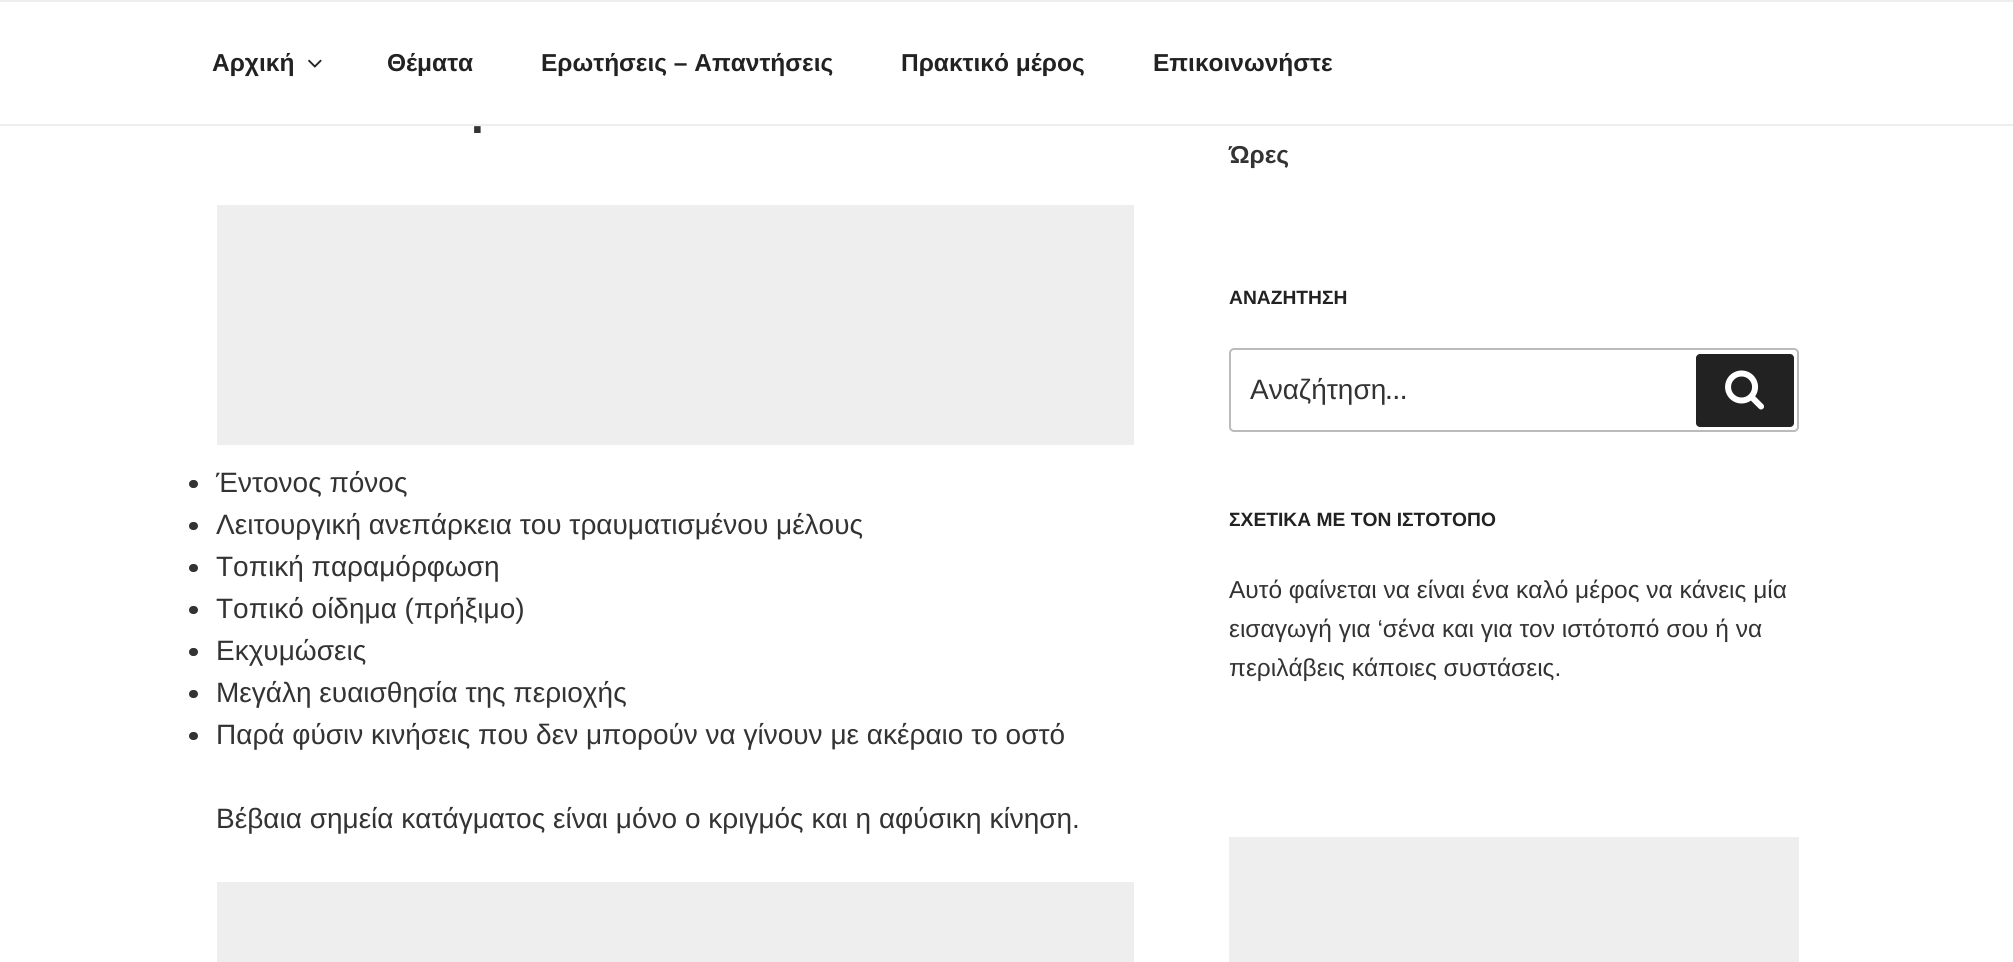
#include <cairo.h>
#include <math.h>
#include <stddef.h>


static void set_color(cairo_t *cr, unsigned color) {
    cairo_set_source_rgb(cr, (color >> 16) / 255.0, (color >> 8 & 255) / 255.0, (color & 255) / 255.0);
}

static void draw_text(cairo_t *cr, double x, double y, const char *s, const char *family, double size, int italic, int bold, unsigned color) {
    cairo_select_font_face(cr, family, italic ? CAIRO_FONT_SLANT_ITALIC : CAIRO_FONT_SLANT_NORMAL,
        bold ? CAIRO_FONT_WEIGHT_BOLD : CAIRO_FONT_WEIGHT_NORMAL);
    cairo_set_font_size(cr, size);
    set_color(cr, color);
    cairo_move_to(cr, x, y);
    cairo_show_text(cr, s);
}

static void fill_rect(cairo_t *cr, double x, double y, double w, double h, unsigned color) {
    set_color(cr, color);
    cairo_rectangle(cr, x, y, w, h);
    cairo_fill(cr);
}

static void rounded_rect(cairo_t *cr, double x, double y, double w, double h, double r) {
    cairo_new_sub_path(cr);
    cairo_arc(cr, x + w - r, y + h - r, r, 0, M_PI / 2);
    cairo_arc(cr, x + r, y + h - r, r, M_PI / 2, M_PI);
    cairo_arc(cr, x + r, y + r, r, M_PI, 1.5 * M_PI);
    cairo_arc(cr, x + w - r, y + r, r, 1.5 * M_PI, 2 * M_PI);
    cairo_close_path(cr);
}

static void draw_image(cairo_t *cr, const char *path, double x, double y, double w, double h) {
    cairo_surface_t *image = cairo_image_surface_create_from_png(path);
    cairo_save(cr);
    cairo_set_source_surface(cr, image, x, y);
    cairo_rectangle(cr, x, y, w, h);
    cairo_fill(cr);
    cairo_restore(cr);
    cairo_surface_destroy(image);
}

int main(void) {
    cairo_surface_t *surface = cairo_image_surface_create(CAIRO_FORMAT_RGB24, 2013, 962);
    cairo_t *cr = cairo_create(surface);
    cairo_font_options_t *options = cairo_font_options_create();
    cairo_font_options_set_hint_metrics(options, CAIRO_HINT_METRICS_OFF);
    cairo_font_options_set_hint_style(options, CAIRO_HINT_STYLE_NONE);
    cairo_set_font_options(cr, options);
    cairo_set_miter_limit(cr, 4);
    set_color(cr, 0xFFFFFF);
    cairo_paint(cr);
    fill_rect(cr, 0, 0, 2013, 2, 0xEEEEEE);
    fill_rect(cr, 0, 124, 2013, 2, 0xEEEEEE);
    draw_text(cr, 212, 71, "Αρχική", "Liberation Sans", 24.5, 0, 1, 0x222222);
    draw_image(cr, "assets/img1.png", 308, 59, 14, 9);
    draw_text(cr, 387, 71, "Θέματα", "Liberation Sans", 24.5, 0, 1, 0x222222);
    draw_text(cr, 541, 71, "Ερωτήσεις – Απαντήσεις", "Liberation Sans", 24.5, 0, 1, 0x222222);
    draw_text(cr, 901, 71, "Πρακτικό μέρος", "Liberation Sans", 24.5, 0, 1, 0x222222);
    draw_text(cr, 1153, 71, "Επικοινωνήστε", "Liberation Sans", 24.5, 0, 1, 0x222222);
    draw_text(cr, 471, 133, ".", "Liberation Sans", 46, 0, 1, 0x333333);
    fill_rect(cr, 217, 205, 917, 240, 0xEEEEEE);
    set_color(cr, 0x333333);
    rounded_rect(cr, 189, 480, 9, 8, 4);
    cairo_fill(cr);
    draw_text(cr, 216, 492, "Έντονος πόνος", "Liberation Sans", 28, 0, 0, 0x333333);
    rounded_rect(cr, 189, 522, 9, 8, 4);
    cairo_fill(cr);
    draw_text(cr, 216, 534, "Λειτουργική ανεπάρκεια του τραυματισμένου μέλους", "Liberation Sans", 28, 0, 0, 0x333333);
    rounded_rect(cr, 189, 564, 9, 8, 4);
    cairo_fill(cr);
    draw_text(cr, 216, 576, "Τοπική παραμόρφωση", "Liberation Sans", 28, 0, 0, 0x333333);
    rounded_rect(cr, 189, 606, 9, 8, 4);
    cairo_fill(cr);
    draw_text(cr, 216, 618, "Τοπικό οίδημα (πρήξιμο)", "Liberation Sans", 28, 0, 0, 0x333333);
    rounded_rect(cr, 189, 648, 9, 8, 4);
    cairo_fill(cr);
    draw_text(cr, 216, 660, "Εκχυμώσεις", "Liberation Sans", 28, 0, 0, 0x333333);
    rounded_rect(cr, 189, 690, 9, 8, 4);
    cairo_fill(cr);
    draw_text(cr, 216, 702, "Μεγάλη ευαισθησία της περιοχής", "Liberation Sans", 28, 0, 0, 0x333333);
    rounded_rect(cr, 189, 732, 9, 8, 4);
    cairo_fill(cr);
    draw_text(cr, 216, 744, "Παρά φύσιν κινήσεις που δεν μπορούν να γίνουν με ακέραιο το οστό", "Liberation Sans", 28, 0, 0, 0x333333);
    draw_text(cr, 216, 828, "Βέβαια σημεία κατάγματος είναι μόνο ο κριγμός και η αφύσικη κίνηση.", "Liberation Sans", 28, 0, 0, 0x333333);
    fill_rect(cr, 217, 882, 917, 80, 0xEEEEEE);
    draw_text(cr, 1229, 163, "Ώρες", "Liberation Sans", 24.5, 0, 1, 0x333333);
    draw_text(cr, 1229, 304, "ΑΝΑΖΗΤΗΣΗ", "Liberation Sans", 19.25, 0, 1, 0x222222);
    rounded_rect(cr, 1230, 349, 568, 82, 4);
    set_color(cr, 0xBBBBBB);
    cairo_stroke(cr);
    draw_text(cr, 1250, 399, "Αναζήτηση", "Liberation Sans", 28, 0, 0, 0x333333);
    draw_text(cr, 1386, 399, "…", "Libre Franklin", 28, 0, 0, 0x333333);
    set_color(cr, 0x222222);
    rounded_rect(cr, 1696, 354, 98, 73, 4);
    cairo_fill(cr);
    draw_image(cr, "assets/img2.png", 1725, 370, 39, 40);
    draw_text(cr, 1229, 526, "ΣΧΕΤΙΚΑ ΜΕ ΤΟΝ ΙΣΤΟΤΟΠΟ", "Liberation Sans", 19.25, 0, 1, 0x222222);
    draw_text(cr, 1229, 598, "Αυτό φαίνεται να είναι ένα καλό μέρος να κάνεις μία", "Liberation Sans", 24.5, 0, 0, 0x333333);
    draw_text(cr, 1229, 637, "εισαγωγή για ‘σένα και για τον ιστότοπό σου ή να", "Liberation Sans", 24.5, 0, 0, 0x333333);
    draw_text(cr, 1229, 676, "περιλάβεις κάποιες συστάσεις.", "Liberation Sans", 24.5, 0, 0, 0x333333);
    fill_rect(cr, 1229, 837, 570, 125, 0xEEEEEE);
    cairo_surface_write_to_png(surface, "output.png");
    cairo_font_options_destroy(options);
    cairo_destroy(cr);
    cairo_surface_destroy(surface);
    return 0;
}
